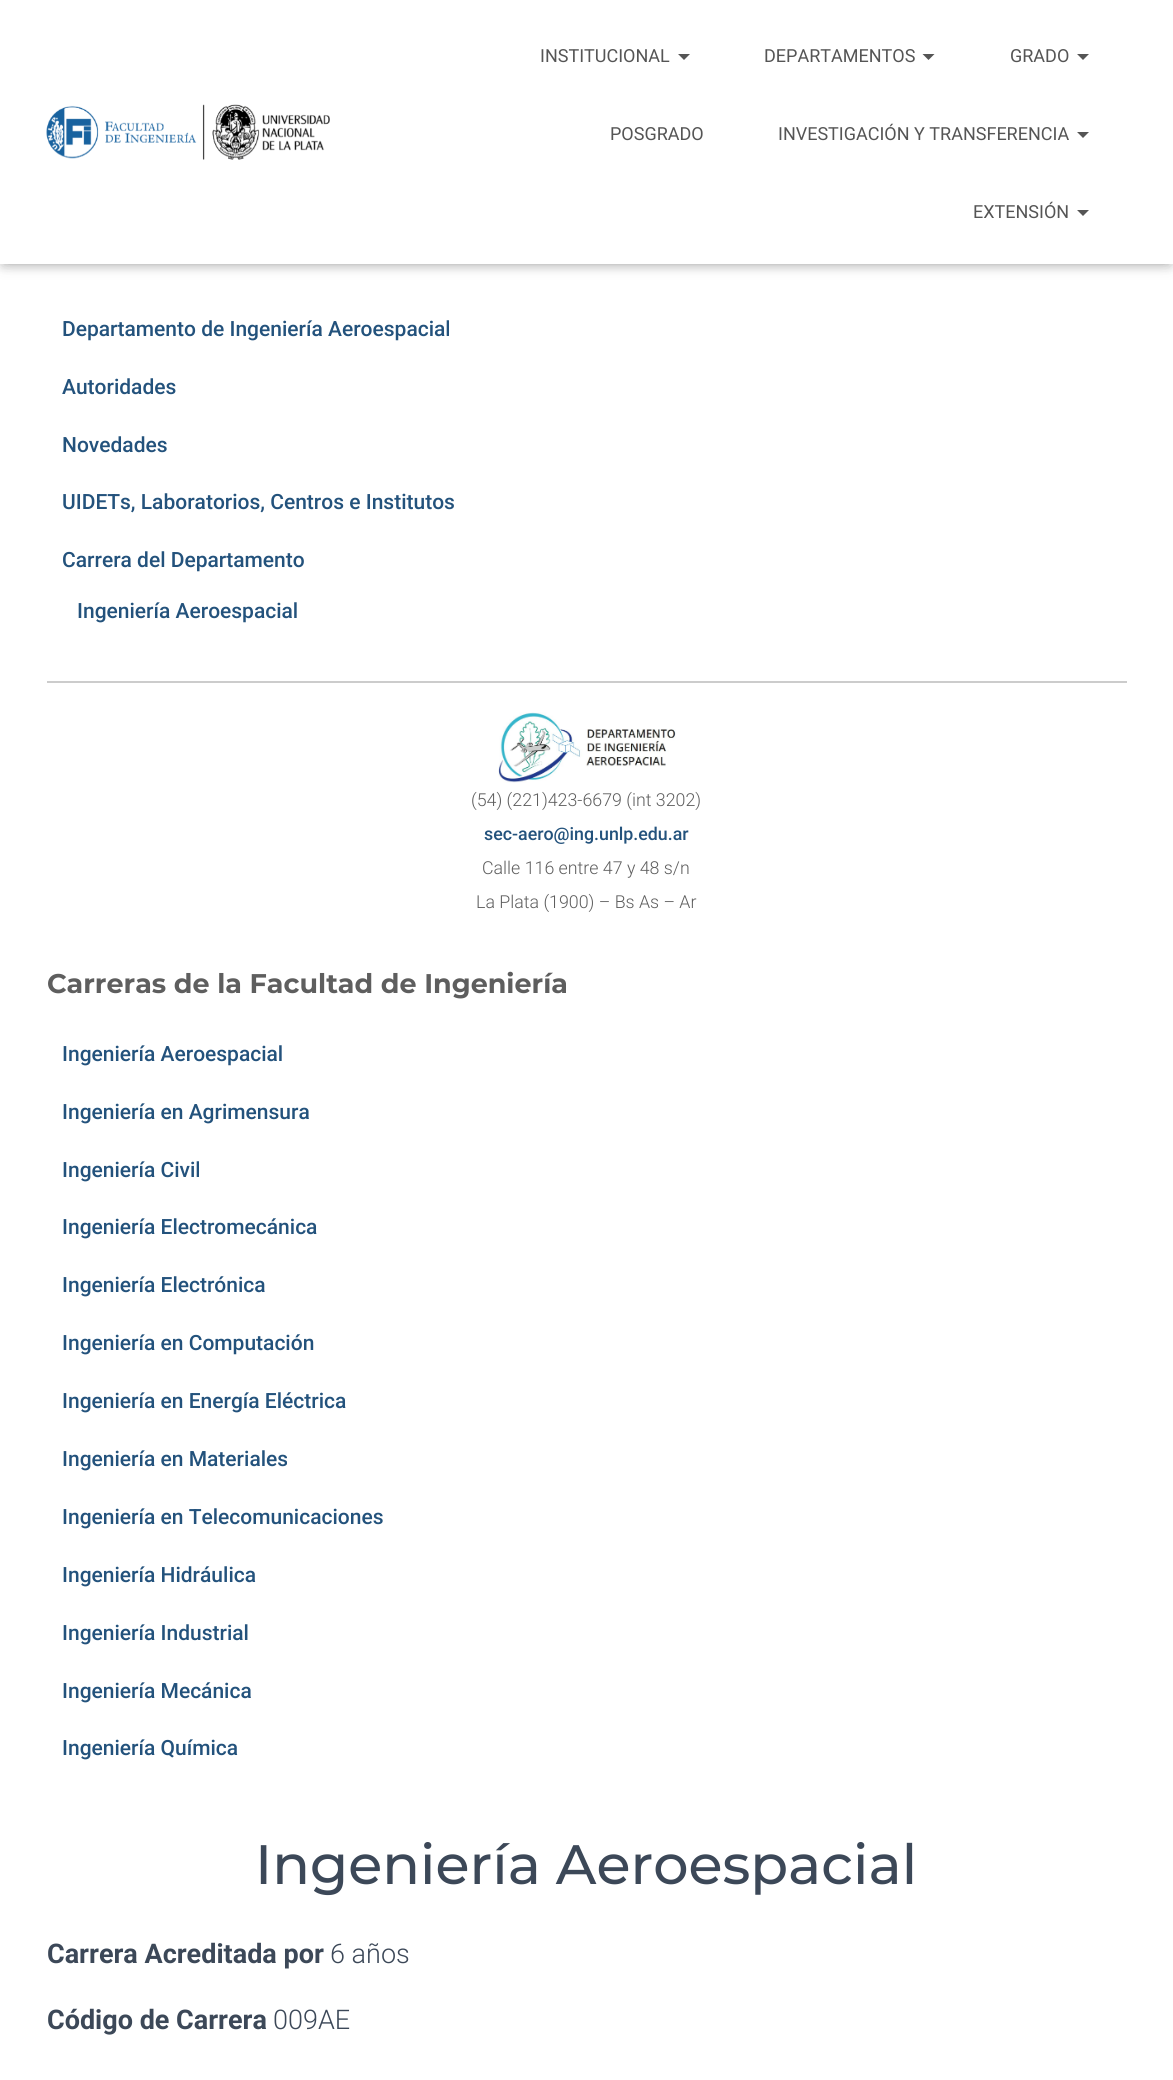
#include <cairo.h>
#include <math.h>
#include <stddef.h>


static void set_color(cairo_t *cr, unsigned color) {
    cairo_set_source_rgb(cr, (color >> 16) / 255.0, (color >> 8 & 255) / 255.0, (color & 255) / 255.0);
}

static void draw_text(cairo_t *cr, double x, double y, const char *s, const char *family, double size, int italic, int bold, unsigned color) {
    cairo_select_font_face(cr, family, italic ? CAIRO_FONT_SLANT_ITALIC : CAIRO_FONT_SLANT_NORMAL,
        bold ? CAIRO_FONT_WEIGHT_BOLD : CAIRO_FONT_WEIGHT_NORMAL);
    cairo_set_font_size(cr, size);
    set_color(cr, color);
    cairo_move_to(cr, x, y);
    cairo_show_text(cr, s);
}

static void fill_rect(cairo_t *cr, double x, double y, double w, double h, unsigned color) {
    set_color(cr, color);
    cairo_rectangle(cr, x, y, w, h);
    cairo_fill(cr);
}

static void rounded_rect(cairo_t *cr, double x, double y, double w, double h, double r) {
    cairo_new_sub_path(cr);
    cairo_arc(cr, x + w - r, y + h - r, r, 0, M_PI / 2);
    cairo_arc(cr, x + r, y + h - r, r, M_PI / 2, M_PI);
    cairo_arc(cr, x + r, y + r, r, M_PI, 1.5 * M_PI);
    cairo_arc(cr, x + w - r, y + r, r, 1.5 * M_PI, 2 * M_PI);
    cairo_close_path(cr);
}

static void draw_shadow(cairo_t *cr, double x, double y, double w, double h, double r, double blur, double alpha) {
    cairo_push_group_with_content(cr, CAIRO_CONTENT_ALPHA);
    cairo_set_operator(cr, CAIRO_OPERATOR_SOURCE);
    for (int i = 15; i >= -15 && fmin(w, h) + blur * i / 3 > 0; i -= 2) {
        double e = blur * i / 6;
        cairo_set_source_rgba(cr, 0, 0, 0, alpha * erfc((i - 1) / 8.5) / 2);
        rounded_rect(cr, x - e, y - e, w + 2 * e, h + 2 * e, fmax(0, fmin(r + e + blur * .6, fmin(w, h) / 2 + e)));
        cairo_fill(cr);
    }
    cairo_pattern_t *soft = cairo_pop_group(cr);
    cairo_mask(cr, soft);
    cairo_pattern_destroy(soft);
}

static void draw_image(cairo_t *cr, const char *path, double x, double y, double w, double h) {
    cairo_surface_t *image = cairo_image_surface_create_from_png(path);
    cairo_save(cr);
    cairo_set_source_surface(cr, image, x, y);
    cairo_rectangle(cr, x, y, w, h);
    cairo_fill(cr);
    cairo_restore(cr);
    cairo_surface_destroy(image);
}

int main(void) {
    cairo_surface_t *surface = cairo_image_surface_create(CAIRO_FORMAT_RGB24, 1173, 2080);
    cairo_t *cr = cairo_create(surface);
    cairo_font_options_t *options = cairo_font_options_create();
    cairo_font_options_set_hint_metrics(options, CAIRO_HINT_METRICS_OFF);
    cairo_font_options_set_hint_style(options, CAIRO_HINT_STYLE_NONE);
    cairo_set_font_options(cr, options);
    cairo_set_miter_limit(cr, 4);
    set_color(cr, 0xFFFFFF);
    cairo_paint(cr);
    set_color(cr, 0x000000);
    draw_shadow(cr, 3, 9, 1167, 258, 0, 4, 0.1);
    draw_shadow(cr, 0, 2, 1173, 264, 0, 7.5, 0.12);
    draw_shadow(cr, 9, 11, 1155, 246, 0, 7.5, 0.42);
    fill_rect(cr, 0, 0, 1173, 264, 0xFFFFFF);
    draw_image(cr, "assets/img1.png", 46, 104, 284, 56);
    draw_text(cr, 540, 62, "INSTITUCIONAL", "Roboto", 18, 0, 0, 0x555555);
    cairo_new_path(cr);
    cairo_move_to(cr, 678, 54);
    cairo_line_to(cr, 690, 54);
    cairo_line_to(cr, 684, 60);
    cairo_close_path(cr);
    cairo_fill(cr);
    draw_text(cr, 764, 62, "DEPARTAMENTOS", "Roboto", 18, 0, 0, 0x555555);
    cairo_new_path(cr);
    cairo_move_to(cr, 922.5, 54);
    cairo_line_to(cr, 934.5, 54);
    cairo_line_to(cr, 928.5, 60);
    cairo_close_path(cr);
    cairo_fill(cr);
    draw_text(cr, 1010, 62, "GRADO", "Roboto", 18, 0, 0, 0x555555);
    cairo_new_path(cr);
    cairo_move_to(cr, 1077, 54);
    cairo_line_to(cr, 1089, 54);
    cairo_line_to(cr, 1083, 60);
    cairo_close_path(cr);
    cairo_fill(cr);
    draw_text(cr, 610, 140, "POSGRADO", "Roboto", 18, 0, 0, 0x555555);
    draw_text(cr, 778, 140, "INVESTIGACIÓN Y TRANSFERENCIA", "Roboto", 18, 0, 0, 0x555555);
    cairo_new_path(cr);
    cairo_move_to(cr, 1077, 132);
    cairo_line_to(cr, 1089, 132);
    cairo_line_to(cr, 1083, 138);
    cairo_close_path(cr);
    cairo_fill(cr);
    draw_text(cr, 973, 218, "EXTENSIÓN", "Roboto", 18, 0, 0, 0x555555);
    cairo_new_path(cr);
    cairo_move_to(cr, 1077, 210);
    cairo_line_to(cr, 1089, 210);
    cairo_line_to(cr, 1083, 216);
    cairo_close_path(cr);
    cairo_fill(cr);
    draw_text(cr, 62, 336, "Departamento de Ingeniería Aeroespacial", "Roboto Medium", 21, 0, 0, 0x23527C);
    draw_text(cr, 62, 394, "Autoridades", "Roboto Medium", 21, 0, 0, 0x23527C);
    draw_text(cr, 62, 452, "Novedades", "Roboto Medium", 21, 0, 0, 0x23527C);
    draw_text(cr, 62, 509, "UIDETs, Laboratorios, Centros e Institutos", "Roboto Medium", 21, 0, 0, 0x23527C);
    draw_text(cr, 62, 567, "Carrera del Departamento", "Roboto Medium", 21, 0, 0, 0x23527C);
    draw_text(cr, 77, 618, "Ingeniería Aeroespacial", "Roboto Medium", 21, 0, 0, 0x23527C);
    fill_rect(cr, 47, 681, 1080, 2, 0xCCCCCC);
    draw_image(cr, "assets/img2.png", 498, 712, 178, 71);
    draw_text(cr, 471, 806, "(54) (221)423-6679 (int 3202)", "Roboto Light", 17.8, 0, 0, 0x5E5E5E);
    draw_text(cr, 484, 840, "sec-aero@ing.unlp.edu.ar", "Roboto Medium", 17.8, 0, 0, 0x23527C);
    draw_text(cr, 482, 874, "Calle 116 entre 47 y 48 s/n", "Roboto Light", 17.8, 0, 0, 0x5E5E5E);
    draw_text(cr, 476, 908, "La Plata (1900) – Bs As – Ar", "Roboto Light", 17.8, 0, 0, 0x5E5E5E);
    draw_text(cr, 47, 993, "Carreras de la Facultad de Ingeniería", "Montserrat", 27, 0, 1, 0x5E5E5E);
    draw_text(cr, 62, 1061, "Ingeniería Aeroespacial", "Roboto Medium", 21, 0, 0, 0x23527C);
    draw_text(cr, 62, 1119, "Ingeniería en Agrimensura", "Roboto Medium", 21, 0, 0, 0x23527C);
    draw_text(cr, 62, 1177, "Ingeniería Civil", "Roboto Medium", 21, 0, 0, 0x23527C);
    draw_text(cr, 62, 1234, "Ingeniería Electromecánica", "Roboto Medium", 21, 0, 0, 0x23527C);
    draw_text(cr, 62, 1292, "Ingeniería Electrónica", "Roboto Medium", 21, 0, 0, 0x23527C);
    draw_text(cr, 62, 1350, "Ingeniería en Computación", "Roboto Medium", 21, 0, 0, 0x23527C);
    draw_text(cr, 62, 1408, "Ingeniería en Energía Eléctrica", "Roboto Medium", 21, 0, 0, 0x23527C);
    draw_text(cr, 62, 1466, "Ingeniería en Materiales", "Roboto Medium", 21, 0, 0, 0x23527C);
    draw_text(cr, 62, 1524, "Ingeniería en Telecomunicaciones", "Roboto Medium", 21, 0, 0, 0x23527C);
    draw_text(cr, 62, 1582, "Ingeniería Hidráulica", "Roboto Medium", 21, 0, 0, 0x23527C);
    draw_text(cr, 62, 1640, "Ingeniería Industrial", "Roboto Medium", 21, 0, 0, 0x23527C);
    draw_text(cr, 62, 1698, "Ingeniería Mecánica", "Roboto Medium", 21, 0, 0, 0x23527C);
    draw_text(cr, 62, 1755, "Ingeniería Química", "Roboto Medium", 21, 0, 0, 0x23527C);
    draw_text(cr, 255, 1884, "Ingeniería Aeroespacial", "Montserrat Medium", 55.5, 0, 0, 0x3C4858);
    draw_text(cr, 47, 1963, "Carrera Acreditada por", "Roboto", 27, 0, 1, 0x3C4858);
    draw_text(cr, 330, 1963, "6 años", "Roboto Light", 27, 0, 0, 0x3C4858);
    draw_text(cr, 47, 2029, "Código de Carrera", "Roboto", 27, 0, 1, 0x3C4858);
    draw_text(cr, 273, 2029, "009AE", "Roboto Light", 27, 0, 0, 0x3C4858);
    cairo_surface_write_to_png(surface, "output.png");
    cairo_font_options_destroy(options);
    cairo_destroy(cr);
    cairo_surface_destroy(surface);
    return 0;
}
